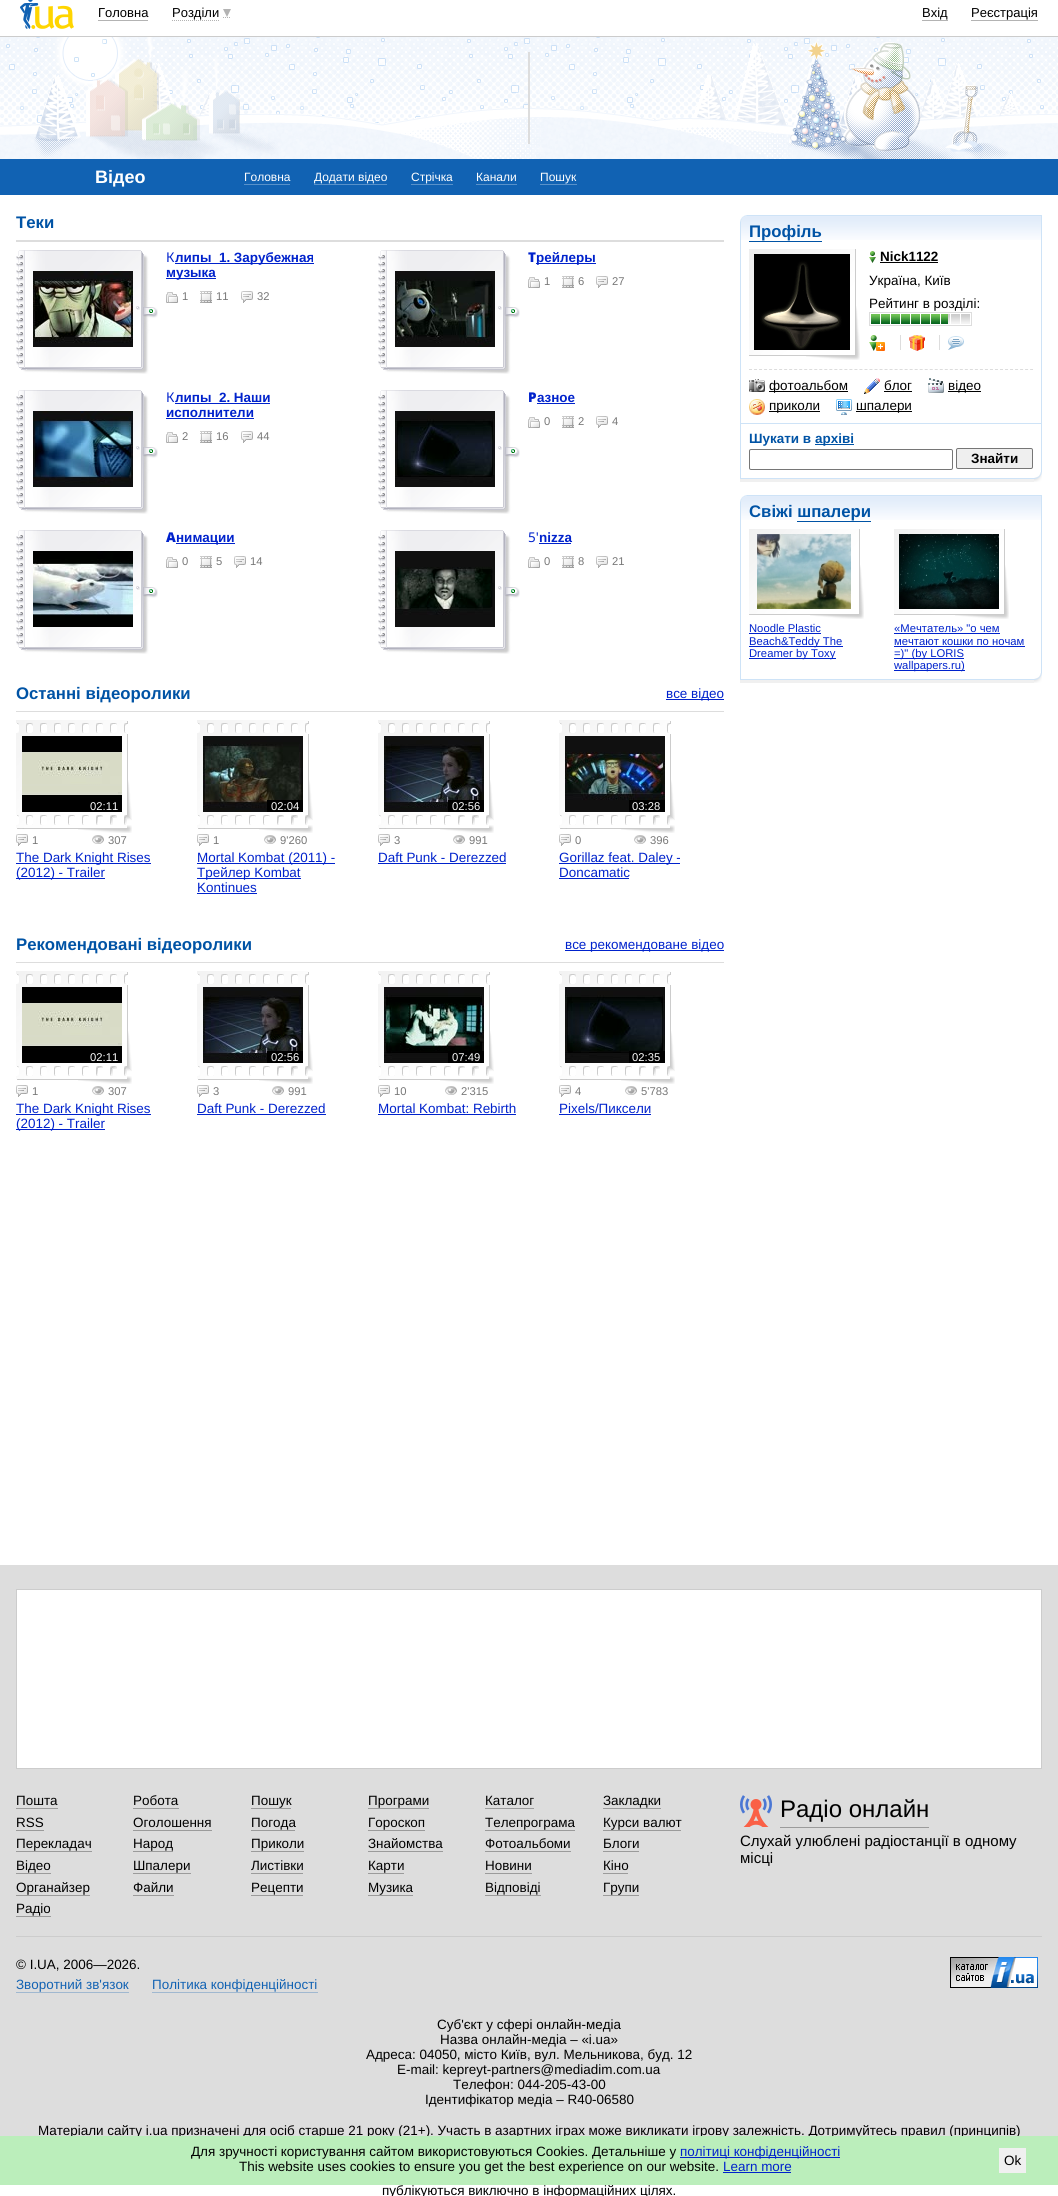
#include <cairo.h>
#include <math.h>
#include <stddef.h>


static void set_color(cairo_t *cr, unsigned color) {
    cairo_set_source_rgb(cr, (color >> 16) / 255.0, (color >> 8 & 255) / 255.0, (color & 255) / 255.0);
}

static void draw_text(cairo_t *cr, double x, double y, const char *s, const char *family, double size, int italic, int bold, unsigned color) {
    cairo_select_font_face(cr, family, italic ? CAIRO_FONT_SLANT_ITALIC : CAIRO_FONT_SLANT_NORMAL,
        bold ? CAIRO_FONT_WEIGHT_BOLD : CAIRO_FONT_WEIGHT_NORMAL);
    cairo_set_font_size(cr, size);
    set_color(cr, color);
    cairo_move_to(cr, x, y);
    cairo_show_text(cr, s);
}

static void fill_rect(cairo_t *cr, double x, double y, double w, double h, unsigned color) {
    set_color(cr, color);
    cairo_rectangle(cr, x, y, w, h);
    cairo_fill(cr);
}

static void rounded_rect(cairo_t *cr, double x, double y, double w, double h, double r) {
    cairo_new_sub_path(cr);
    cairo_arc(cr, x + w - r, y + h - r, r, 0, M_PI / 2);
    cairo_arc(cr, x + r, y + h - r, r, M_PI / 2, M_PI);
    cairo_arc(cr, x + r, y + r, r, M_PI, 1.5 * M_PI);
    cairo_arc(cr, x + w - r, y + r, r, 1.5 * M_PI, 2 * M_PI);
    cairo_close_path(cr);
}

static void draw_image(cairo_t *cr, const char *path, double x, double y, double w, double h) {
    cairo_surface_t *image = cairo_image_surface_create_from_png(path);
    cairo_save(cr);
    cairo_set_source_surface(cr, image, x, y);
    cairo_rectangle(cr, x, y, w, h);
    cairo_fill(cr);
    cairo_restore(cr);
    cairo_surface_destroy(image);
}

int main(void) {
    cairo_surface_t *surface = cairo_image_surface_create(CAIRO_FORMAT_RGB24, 1058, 2196);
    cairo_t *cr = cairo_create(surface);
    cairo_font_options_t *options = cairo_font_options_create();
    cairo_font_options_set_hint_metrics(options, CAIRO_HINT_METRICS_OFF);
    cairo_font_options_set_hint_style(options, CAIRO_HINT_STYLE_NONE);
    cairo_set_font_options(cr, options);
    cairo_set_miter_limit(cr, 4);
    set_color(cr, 0xFFFFFF);
    cairo_paint(cr);
    fill_rect(cr, 0, 36, 1058, 1, 0xCCCCCC);
    draw_image(cr, "assets/img1.png", 20, 0, 54, 29);
    draw_text(cr, 98, 17, "Головна", "Liberation Sans", 13, 0, 0, 0x000000);
    fill_rect(cr, 98, 20, 50, 1, 0xB3B3B3);
    cairo_new_path(cr);
    cairo_move_to(cr, 172, 20.5);
    cairo_line_to(cr, 219, 20.5);
    cairo_move_to(cr, 223, 17.5);
    cairo_line_to(cr, 231, 17.5);
    cairo_set_line_width(cr, 1);
    cairo_set_dash(cr, (double[]){1, 1}, 2, 0);
    cairo_stroke(cr);
    draw_text(cr, 172, 17, "Розділи", "Liberation Sans", 13, 0, 0, 0x000000);
    set_color(cr, 0xB3B3B3);
    cairo_new_path(cr);
    cairo_move_to(cr, 223, 9);
    cairo_line_to(cr, 231, 9);
    cairo_line_to(cr, 227, 17);
    cairo_close_path(cr);
    cairo_fill(cr);
    draw_text(cr, 922, 17, "Вхід", "Liberation Sans", 13, 0, 0, 0x000000);
    fill_rect(cr, 922, 20, 26, 1, 0xB3B3B3);
    draw_text(cr, 971, 17, "Реєстрація", "Liberation Sans", 13, 0, 0, 0x000000);
    fill_rect(cr, 971, 20, 67, 1, 0xB3B3B3);
    draw_image(cr, "assets/img2.png", 0, 37, 1058, 122);
    fill_rect(cr, 528, 52, 2, 92, 0xDDDDDD);
    fill_rect(cr, 0, 159, 1058, 36, 0x1162B3);
    draw_text(cr, 95, 183, "Відео", "Liberation Sans", 18, 0, 1, 0xFFFFFF);
    draw_text(cr, 244, 181, "Головна", "Liberation Sans", 12, 0, 0, 0xFFFFFF);
    fill_rect(cr, 244, 184, 46, 1, 0x5891CA);
    draw_text(cr, 314, 181, "Додати відео", "Liberation Sans", 12, 0, 0, 0xFFFFFF);
    fill_rect(cr, 314, 184, 73, 1, 0x5891CA);
    draw_text(cr, 411, 181, "Стрічка", "Liberation Sans", 12, 0, 0, 0xFFFFFF);
    fill_rect(cr, 411, 184, 42, 1, 0x5891CA);
    draw_text(cr, 476, 181, "Канали", "Liberation Sans", 12, 0, 0, 0xFFFFFF);
    fill_rect(cr, 476, 184, 41, 1, 0x5891CA);
    draw_text(cr, 540, 181, "Пошук", "Liberation Sans", 12, 0, 0, 0xFFFFFF);
    fill_rect(cr, 540, 184, 37, 1, 0x5891CA);
    fill_rect(cr, 16, 240, 708, 2, 0xDDDDDD);
    draw_text(cr, 16, 228, "Теки", "Liberation Sans", 16.75, 0, 1, 0x0053A5);
    draw_image(cr, "assets/img3.png", 16, 250, 142, 124);
    draw_image(cr, "assets/img4.png", 33, 271, 100, 76);
    draw_text(cr, 166, 262, "К", "Noto Sans", 13.45, 0, 0, 0x0022CC);
    fill_rect(cr, 175, 263, 139, 1, 0x0022CC);
    draw_text(cr, 175, 262, "липы_1. Зарубежная", "Liberation Sans", 13.45, 0, 1, 0x0022CC);
    fill_rect(cr, 166, 278, 50, 1, 0x0022CC);
    draw_text(cr, 166, 277, "музыка", "Liberation Sans", 13.45, 0, 1, 0x0022CC);
    draw_image(cr, "assets/img5.png", 166, 292, 12, 11);
    draw_text(cr, 182, 300, "1", "Liberation Sans", 11.25, 0, 0, 0x777777);
    draw_image(cr, "assets/img6.png", 200, 291, 12, 12);
    draw_text(cr, 216, 300, "11", "Liberation Sans", 11.25, 0, 0, 0x777777);
    draw_image(cr, "assets/img7.png", 241, 291, 12, 12);
    draw_text(cr, 257, 300, "32", "Liberation Sans", 11.25, 0, 0, 0x777777);
    draw_image(cr, "assets/img3.png", 378, 250, 142, 124);
    draw_image(cr, "assets/img8.png", 395, 271, 100, 76);
    draw_text(cr, 528, 262, "Т", "Noto Sans Black", 13.45, 0, 0, 0x0022CC);
    fill_rect(cr, 536, 263, 60, 1, 0x0022CC);
    draw_text(cr, 536, 262, "рейлеры", "Liberation Sans", 13.45, 0, 1, 0x0022CC);
    draw_image(cr, "assets/img5.png", 528, 277, 12, 11);
    draw_text(cr, 544, 285, "1", "Liberation Sans", 11.25, 0, 0, 0x777777);
    draw_image(cr, "assets/img6.png", 562, 276, 12, 12);
    draw_text(cr, 578, 285, "6", "Liberation Sans", 11.25, 0, 0, 0x777777);
    draw_image(cr, "assets/img7.png", 596, 276, 12, 12);
    draw_text(cr, 612, 285, "27", "Liberation Sans", 11.25, 0, 0, 0x777777);
    draw_image(cr, "assets/img3.png", 16, 390, 142, 124);
    draw_image(cr, "assets/img9.png", 33, 411, 100, 76);
    draw_text(cr, 166, 402, "К", "Noto Sans", 13.45, 0, 0, 0x0022CC);
    fill_rect(cr, 175, 403, 95, 1, 0x0022CC);
    draw_text(cr, 175, 402, "липы_2. Наши", "Liberation Sans", 13.45, 0, 1, 0x0022CC);
    draw_text(cr, 166, 417, "исполнители", "Liberation Sans", 13.45, 0, 1, 0x0022CC);
    fill_rect(cr, 166, 418, 88, 1, 0x0022CC);
    draw_image(cr, "assets/img5.png", 166, 432, 12, 11);
    draw_text(cr, 182, 440, "2", "Liberation Sans", 11.25, 0, 0, 0x777777);
    draw_image(cr, "assets/img6.png", 200, 431, 12, 12);
    draw_text(cr, 216, 440, "16", "Liberation Sans", 11.25, 0, 0, 0x777777);
    draw_image(cr, "assets/img7.png", 241, 431, 12, 12);
    draw_text(cr, 257, 440, "44", "Liberation Sans", 11.25, 0, 0, 0x777777);
    draw_image(cr, "assets/img3.png", 378, 390, 142, 124);
    draw_image(cr, "assets/img10.png", 395, 411, 100, 76);
    draw_text(cr, 528, 402, "Р", "Noto Sans Black", 13.45, 0, 0, 0x0022CC);
    draw_text(cr, 537, 402, "азное", "Liberation Sans", 13.45, 0, 1, 0x0022CC);
    fill_rect(cr, 537, 403, 38, 1, 0x0022CC);
    draw_image(cr, "assets/img5.png", 528, 417, 12, 11);
    draw_text(cr, 544, 425, "0", "Liberation Sans", 11.25, 0, 0, 0x777777);
    draw_image(cr, "assets/img6.png", 562, 416, 12, 12);
    draw_text(cr, 578, 425, "2", "Liberation Sans", 11.25, 0, 0, 0x777777);
    draw_image(cr, "assets/img7.png", 596, 416, 12, 12);
    draw_text(cr, 612, 425, "4", "Liberation Sans", 11.25, 0, 0, 0x777777);
    draw_image(cr, "assets/img3.png", 16, 530, 142, 124);
    draw_image(cr, "assets/img11.png", 33, 551, 100, 76);
    draw_text(cr, 166, 542, "А", "Noto Sans Black", 13.45, 0, 0, 0x0022CC);
    fill_rect(cr, 176, 543, 59, 1, 0x0022CC);
    draw_text(cr, 176, 542, "нимации", "Liberation Sans", 13.45, 0, 1, 0x0022CC);
    draw_image(cr, "assets/img5.png", 166, 557, 12, 11);
    draw_text(cr, 182, 565, "0", "Liberation Sans", 11.25, 0, 0, 0x777777);
    draw_image(cr, "assets/img6.png", 200, 556, 12, 12);
    draw_text(cr, 216, 565, "5", "Liberation Sans", 11.25, 0, 0, 0x777777);
    draw_image(cr, "assets/img7.png", 234, 556, 12, 12);
    draw_text(cr, 250, 565, "14", "Liberation Sans", 11.25, 0, 0, 0x777777);
    draw_image(cr, "assets/img3.png", 378, 530, 142, 124);
    draw_image(cr, "assets/img12.png", 395, 551, 100, 76);
    draw_text(cr, 528, 542, "5'", "Noto Sans", 13.45, 0, 0, 0x0022CC);
    draw_text(cr, 539, 542, "nizza", "Liberation Sans", 13.45, 0, 1, 0x0022CC);
    fill_rect(cr, 539, 543, 32, 1, 0x0022CC);
    draw_image(cr, "assets/img5.png", 528, 557, 12, 11);
    draw_text(cr, 544, 565, "0", "Liberation Sans", 11.25, 0, 0, 0x777777);
    draw_image(cr, "assets/img6.png", 562, 556, 12, 12);
    draw_text(cr, 578, 565, "8", "Liberation Sans", 11.25, 0, 0, 0x777777);
    draw_image(cr, "assets/img7.png", 596, 556, 12, 12);
    draw_text(cr, 612, 565, "21", "Liberation Sans", 11.25, 0, 0, 0x777777);
    fill_rect(cr, 16, 711, 708, 1, 0xDDDDDD);
    draw_text(cr, 16, 699, "Останні відеоролики", "Liberation Sans", 16.75, 0, 1, 0x0053A5);
    fill_rect(cr, 666, 699, 58, 1, 0x0022CC);
    draw_text(cr, 666, 698, "все відео", "Liberation Sans", 13.45, 0, 0, 0x0022CC);
    draw_image(cr, "assets/img13.png", 16, 720, 116, 113);
    draw_image(cr, "assets/img14.png", 22, 736, 100, 76);
    draw_text(cr, 90, 810, "02:11", "Liberation Sans", 11.25, 0, 0, 0xFFFFFF);
    draw_image(cr, "assets/img7.png", 16, 834, 12, 12);
    draw_text(cr, 32, 844, "1", "Liberation Sans", 11.25, 0, 0, 0x777777);
    draw_image(cr, "assets/img15.png", 92, 835, 12, 9);
    draw_text(cr, 108, 844, "307", "Liberation Sans", 11.25, 0, 0, 0x777777);
    fill_rect(cr, 16, 863, 135, 1, 0x0022CC);
    draw_text(cr, 16, 862, "The Dark Knight Rises", "Liberation Sans", 13.45, 0, 0, 0x0022CC);
    fill_rect(cr, 16, 878, 89, 1, 0x0022CC);
    draw_text(cr, 16, 877, "(2012) - Trailer", "Liberation Sans", 13.45, 0, 0, 0x0022CC);
    draw_image(cr, "assets/img13.png", 197, 720, 116, 113);
    draw_image(cr, "assets/img16.png", 203, 736, 100, 76);
    fill_rect(cr, 267, 800, 36, 12, 0x000000);
    draw_text(cr, 271, 810, "02:04", "Liberation Sans", 11.25, 0, 0, 0xFFFFFF);
    draw_image(cr, "assets/img7.png", 197, 834, 12, 12);
    draw_text(cr, 213, 844, "1", "Liberation Sans", 11.25, 0, 0, 0x777777);
    draw_image(cr, "assets/img15.png", 264, 835, 12, 9);
    draw_text(cr, 280, 844, "9'260", "Liberation Sans", 11.25, 0, 0, 0x777777);
    fill_rect(cr, 197, 863, 138, 1, 0x0022CC);
    draw_text(cr, 197, 862, "Mortal Kombat (2011) -", "Liberation Sans", 13.45, 0, 0, 0x0022CC);
    fill_rect(cr, 197, 878, 104, 1, 0x0022CC);
    draw_text(cr, 197, 877, "Трейлер Kombat", "Liberation Sans", 13.45, 0, 0, 0x0022CC);
    draw_text(cr, 197, 892, "Kontinues", "Liberation Sans", 13.45, 0, 0, 0x0022CC);
    fill_rect(cr, 197, 893, 60, 1, 0x0022CC);
    draw_image(cr, "assets/img13.png", 378, 720, 116, 113);
    draw_image(cr, "assets/img17.png", 384, 736, 100, 76);
    fill_rect(cr, 448, 800, 36, 12, 0x000000);
    draw_text(cr, 452, 810, "02:56", "Liberation Sans", 11.25, 0, 0, 0xFFFFFF);
    draw_image(cr, "assets/img7.png", 378, 834, 12, 12);
    draw_text(cr, 394, 844, "3", "Liberation Sans", 11.25, 0, 0, 0x777777);
    draw_image(cr, "assets/img15.png", 453, 835, 12, 9);
    draw_text(cr, 469, 844, "991", "Liberation Sans", 11.25, 0, 0, 0x777777);
    draw_text(cr, 378, 862, "Daft Punk - Derezzed", "Liberation Sans", 13.45, 0, 0, 0x0022CC);
    fill_rect(cr, 378, 863, 128, 1, 0x0022CC);
    draw_image(cr, "assets/img13.png", 559, 720, 116, 113);
    draw_image(cr, "assets/img18.png", 565, 736, 100, 76);
    fill_rect(cr, 629, 800, 36, 12, 0x000000);
    draw_text(cr, 632, 810, "03:28", "Liberation Sans", 11.25, 0, 0, 0xFFFFFF);
    draw_image(cr, "assets/img7.png", 559, 834, 12, 12);
    draw_text(cr, 575, 844, "0", "Liberation Sans", 11.25, 0, 0, 0x777777);
    draw_image(cr, "assets/img15.png", 634, 835, 12, 9);
    draw_text(cr, 650, 844, "396", "Liberation Sans", 11.25, 0, 0, 0x777777);
    fill_rect(cr, 559, 863, 121, 1, 0x0022CC);
    draw_text(cr, 559, 862, "Gorillaz feat. Daley -", "Liberation Sans", 13.45, 0, 0, 0x0022CC);
    draw_text(cr, 559, 877, "Doncamatic", "Liberation Sans", 13.45, 0, 0, 0x0022CC);
    fill_rect(cr, 559, 878, 70, 1, 0x0022CC);
    fill_rect(cr, 16, 962, 708, 1, 0xDDDDDD);
    draw_text(cr, 16, 950, "Рекомендовані відеоролики", "Liberation Sans", 16.75, 0, 1, 0x0053A5);
    fill_rect(cr, 565, 950, 159, 1, 0x0022CC);
    draw_text(cr, 565, 949, "все рекомендоване відео", "Liberation Sans", 13.45, 0, 0, 0x0022CC);
    draw_image(cr, "assets/img13.png", 16, 971, 116, 113);
    draw_image(cr, "assets/img14.png", 22, 987, 100, 76);
    draw_text(cr, 90, 1061, "02:11", "Liberation Sans", 11.25, 0, 0, 0xFFFFFF);
    draw_image(cr, "assets/img7.png", 16, 1085, 12, 12);
    draw_text(cr, 32, 1095, "1", "Liberation Sans", 11.25, 0, 0, 0x777777);
    draw_image(cr, "assets/img15.png", 92, 1086, 12, 9);
    draw_text(cr, 108, 1095, "307", "Liberation Sans", 11.25, 0, 0, 0x777777);
    fill_rect(cr, 16, 1114, 135, 1, 0x0022CC);
    draw_text(cr, 16, 1113, "The Dark Knight Rises", "Liberation Sans", 13.45, 0, 0, 0x0022CC);
    fill_rect(cr, 16, 1129, 89, 1, 0x0022CC);
    draw_text(cr, 16, 1128, "(2012) - Trailer", "Liberation Sans", 13.45, 0, 0, 0x0022CC);
    draw_image(cr, "assets/img13.png", 197, 971, 116, 113);
    draw_image(cr, "assets/img17.png", 203, 987, 100, 76);
    fill_rect(cr, 267, 1051, 36, 12, 0x000000);
    draw_text(cr, 271, 1061, "02:56", "Liberation Sans", 11.25, 0, 0, 0xFFFFFF);
    draw_image(cr, "assets/img7.png", 197, 1085, 12, 12);
    draw_text(cr, 213, 1095, "3", "Liberation Sans", 11.25, 0, 0, 0x777777);
    draw_image(cr, "assets/img15.png", 272, 1086, 12, 9);
    draw_text(cr, 288, 1095, "991", "Liberation Sans", 11.25, 0, 0, 0x777777);
    draw_text(cr, 197, 1113, "Daft Punk - Derezzed", "Liberation Sans", 13.45, 0, 0, 0x0022CC);
    fill_rect(cr, 197, 1114, 129, 1, 0x0022CC);
    draw_image(cr, "assets/img13.png", 378, 971, 116, 113);
    draw_image(cr, "assets/img19.png", 384, 987, 100, 76);
    fill_rect(cr, 448, 1051, 36, 12, 0x000000);
    draw_text(cr, 452, 1061, "07:49", "Liberation Sans", 11.25, 0, 0, 0xFFFFFF);
    draw_image(cr, "assets/img7.png", 378, 1085, 12, 12);
    draw_text(cr, 394, 1095, "10", "Liberation Sans", 11.25, 0, 0, 0x777777);
    draw_image(cr, "assets/img15.png", 445, 1086, 12, 9);
    draw_text(cr, 461, 1095, "2'315", "Liberation Sans", 11.25, 0, 0, 0x777777);
    draw_text(cr, 378, 1113, "Mortal Kombat: Rebirth", "Liberation Sans", 13.45, 0, 0, 0x0022CC);
    fill_rect(cr, 378, 1114, 138, 1, 0x0022CC);
    draw_image(cr, "assets/img13.png", 559, 971, 116, 113);
    draw_image(cr, "assets/img10.png", 565, 987, 100, 76);
    fill_rect(cr, 629, 1051, 36, 12, 0x000000);
    draw_text(cr, 632, 1061, "02:35", "Liberation Sans", 11.25, 0, 0, 0xFFFFFF);
    draw_image(cr, "assets/img7.png", 559, 1085, 12, 12);
    draw_text(cr, 575, 1095, "4", "Liberation Sans", 11.25, 0, 0, 0x777777);
    draw_image(cr, "assets/img15.png", 625, 1086, 12, 9);
    draw_text(cr, 641, 1095, "5'783", "Liberation Sans", 11.25, 0, 0, 0x777777);
    draw_text(cr, 559, 1113, "Pixels/Пиксели", "Liberation Sans", 13.45, 0, 0, 0x0022CC);
    fill_rect(cr, 559, 1114, 92, 1, 0x0022CC);
    fill_rect(cr, 740, 479, 302, 3, 0xF0F0F0);
    draw_image(cr, "assets/img21.png", 741, 216, 300, 24);
    cairo_rectangle(cr, 740.5, 215.5, 301, 263);
    set_color(cr, 0xCEE3F7);
    cairo_set_dash(cr, NULL, 0, 0);
    cairo_stroke(cr);
    draw_image(cr, "assets/img20.png", 740, 215, 7, 7);
    draw_text(cr, 749, 237, "Профіль", "Liberation Sans", 16.75, 0, 1, 0x0053A5);
    fill_rect(cr, 749, 241, 73, 1, 0x0053A5);
    draw_image(cr, "assets/img22.png", 749, 249, 111, 111);
    draw_image(cr, "assets/img23.png", 754, 254, 96, 96);
    draw_image(cr, "assets/img24.png", 869, 251, 7, 12);
    draw_text(cr, 880, 261, "Nick1122", "Liberation Sans", 13.45, 0, 1, 0x000000);
    fill_rect(cr, 880, 262, 58, 1, 0x000000);
    draw_text(cr, 869, 285, "Україна, Київ", "Liberation Sans", 13.45, 0, 0, 0x000000);
    draw_text(cr, 869, 308, "Рейтинг в розділі:", "Liberation Sans", 13.45, 0, 0, 0x000000);
    draw_image(cr, "assets/img25.png", 948, 314, 22, 10);
    cairo_rectangle(cr, 869.5, 312.5, 102, 13);
    set_color(cr, 0xDDDDDD);
    cairo_stroke(cr);
    draw_image(cr, "assets/img26.png", 871, 314, 77, 10);
    draw_image(cr, "assets/img27.png", 869, 335, 16, 16);
    fill_rect(cr, 900, 335, 1, 15, 0xDDDDDD);
    draw_image(cr, "assets/img28.png", 909, 335, 16, 16);
    fill_rect(cr, 939, 335, 1, 15, 0xDDDDDD);
    draw_image(cr, "assets/img29.png", 948, 336, 16, 14);
    cairo_new_path(cr);
    cairo_move_to(cr, 749, 369.5);
    cairo_line_to(cr, 1033, 369.5);
    cairo_set_dash(cr, (double[]){3, 2.02}, 2, 0);
    cairo_stroke(cr);
    draw_image(cr, "assets/img30.png", 749, 379, 16, 13);
    fill_rect(cr, 769, 391, 79, 1, 0x000000);
    draw_text(cr, 769, 390, "фотоальбом", "Liberation Sans", 13.45, 0, 0, 0x000000);
    draw_image(cr, "assets/img31.png", 864, 378, 16, 16);
    draw_text(cr, 884, 390, "блог", "Liberation Sans", 13.45, 0, 0, 0x000000);
    fill_rect(cr, 884, 391, 28, 1, 0x000000);
    draw_image(cr, "assets/img32.png", 928, 378, 16, 15);
    fill_rect(cr, 948, 391, 33, 1, 0x000000);
    draw_text(cr, 948, 390, "відео", "Liberation Sans", 13.45, 0, 0, 0x000000);
    draw_image(cr, "assets/img33.png", 749, 399, 16, 16);
    fill_rect(cr, 769, 411, 51, 1, 0x000000);
    draw_text(cr, 769, 410, "приколи", "Liberation Sans", 13.45, 0, 0, 0x000000);
    draw_image(cr, "assets/img34.png", 836, 399, 16, 16);
    fill_rect(cr, 856, 411, 56, 1, 0x000000);
    draw_text(cr, 856, 410, "шпалери", "Liberation Sans", 13.45, 0, 0, 0x000000);
    fill_rect(cr, 741, 423, 300, 1, 0xCEE3F7);
    draw_text(cr, 749, 443, "Шукати в", "Liberation Sans", 13.45, 0, 1, 0x0053A5);
    fill_rect(cr, 815, 444, 39, 1, 0x0053A5);
    draw_text(cr, 815, 443, "архіві", "Liberation Sans", 13.45, 0, 1, 0x0053A5);
    rounded_rect(cr, 749.5, 449.5, 203, 20, 1.5);
    set_color(cr, 0x767676);
    cairo_set_dash(cr, NULL, 0, 0);
    cairo_stroke(cr);
    set_color(cr, 0xEFEFEF);
    rounded_rect(cr, 956.5, 448.5, 76, 20, 1.5);
    cairo_fill_preserve(cr);
    set_color(cr, 0x767676);
    cairo_stroke(cr);
    draw_text(cr, 971, 463, "Знайти", "Liberation Sans", 13.45, 0, 1, 0x000000);
    draw_image(cr, "assets/img35.png", 1034, 472, 8, 10);
    fill_rect(cr, 740, 680, 302, 3, 0xF0F0F0);
    draw_image(cr, "assets/img21.png", 741, 496, 300, 24);
    cairo_rectangle(cr, 740.5, 495.5, 301, 184);
    set_color(cr, 0xCEE3F7);
    cairo_stroke(cr);
    draw_image(cr, "assets/img20.png", 740, 495, 7, 7);
    draw_text(cr, 749, 517, "Свіжі шпалери", "Liberation Sans", 16.75, 0, 1, 0x0053A5);
    fill_rect(cr, 797, 521, 74, 1, 0x0053A5);
    draw_image(cr, "assets/img36.png", 749, 529, 115, 90);
    draw_image(cr, "assets/img37.png", 757, 534, 94, 75);
    draw_text(cr, 749, 632, "Noodle Plastic", "Liberation Sans", 11.25, 0, 0, 0x0022CC);
    fill_rect(cr, 749, 633, 72, 1, 0x0022CC);
    fill_rect(cr, 749, 646, 94, 1, 0x0022CC);
    draw_text(cr, 749, 645, "Beach&Teddy The", "Liberation Sans", 11.25, 0, 0, 0x0022CC);
    fill_rect(cr, 749, 658, 87, 1, 0x0022CC);
    draw_text(cr, 749, 657, "Dreamer by Toxy", "Liberation Sans", 11.25, 0, 0, 0x0022CC);
    draw_image(cr, "assets/img36.png", 894, 529, 115, 90);
    draw_image(cr, "assets/img38.png", 899, 534, 100, 75);
    draw_text(cr, 894, 632, "«Мечтатель» \"о чем", "Liberation Sans", 11.25, 0, 0, 0x0022CC);
    fill_rect(cr, 894, 633, 106, 1, 0x0022CC);
    draw_text(cr, 894, 645, "мечтают кошки по ночам", "Liberation Sans", 11.25, 0, 0, 0x0022CC);
    fill_rect(cr, 894, 646, 131, 1, 0x0022CC);
    fill_rect(cr, 894, 658, 70, 1, 0x0022CC);
    draw_text(cr, 894, 657, "=)\" (by LORIS", "Liberation Sans", 11.25, 0, 0, 0x0022CC);
    fill_rect(cr, 894, 670, 71, 1, 0x0022CC);
    draw_text(cr, 894, 669, "wallpapers.ru)", "Liberation Sans", 11.25, 0, 0, 0x0022CC);
    draw_image(cr, "assets/img35.png", 1034, 673, 8, 10);
    fill_rect(cr, 0, 1565, 1058, 571, 0xDDDDDD);
    set_color(cr, 0xFFFFFF);
    cairo_rectangle(cr, 16.5, 1589.5, 1025, 179);
    cairo_fill_preserve(cr);
    set_color(cr, 0xCCCCCC);
    cairo_stroke(cr);
    draw_text(cr, 16, 1805, "Пошта", "Liberation Sans", 13.45, 0, 0, 0x000000);
    fill_rect(cr, 16, 1808, 42, 1, 0x9B9B9B);
    draw_text(cr, 133, 1805, "Робота", "Liberation Sans", 13.45, 0, 0, 0x000000);
    fill_rect(cr, 133, 1808, 46, 1, 0x9B9B9B);
    draw_text(cr, 251, 1805, "Пошук", "Liberation Sans", 13.45, 0, 0, 0x000000);
    fill_rect(cr, 251, 1808, 40, 1, 0x9B9B9B);
    draw_text(cr, 368, 1805, "Програми", "Liberation Sans", 13.45, 0, 0, 0x000000);
    fill_rect(cr, 368, 1808, 61, 1, 0x9B9B9B);
    draw_text(cr, 485, 1805, "Каталог", "Liberation Sans", 13.45, 0, 0, 0x000000);
    fill_rect(cr, 485, 1808, 49, 1, 0x9B9B9B);
    draw_text(cr, 603, 1805, "Закладки", "Liberation Sans", 13.45, 0, 0, 0x000000);
    fill_rect(cr, 603, 1808, 58, 1, 0x9B9B9B);
    draw_text(cr, 16, 1827, "RSS", "Liberation Sans", 13.45, 0, 0, 0x000000);
    fill_rect(cr, 16, 1830, 28, 1, 0x9B9B9B);
    draw_text(cr, 133, 1827, "Оголошення", "Liberation Sans", 13.45, 0, 0, 0x000000);
    fill_rect(cr, 133, 1830, 79, 1, 0x9B9B9B);
    draw_text(cr, 251, 1827, "Погода", "Liberation Sans", 13.45, 0, 0, 0x000000);
    fill_rect(cr, 251, 1830, 44, 1, 0x9B9B9B);
    draw_text(cr, 368, 1827, "Гороскоп", "Liberation Sans", 13.45, 0, 0, 0x000000);
    fill_rect(cr, 368, 1830, 57, 1, 0x9B9B9B);
    draw_text(cr, 485, 1827, "Телепрограма", "Liberation Sans", 13.45, 0, 0, 0x000000);
    fill_rect(cr, 485, 1830, 90, 1, 0x9B9B9B);
    draw_text(cr, 603, 1827, "Курси валют", "Liberation Sans", 13.45, 0, 0, 0x000000);
    fill_rect(cr, 603, 1830, 78, 1, 0x9B9B9B);
    draw_text(cr, 16, 1848, "Перекладач", "Liberation Sans", 13.45, 0, 0, 0x000000);
    fill_rect(cr, 16, 1851, 76, 1, 0x9B9B9B);
    draw_text(cr, 133, 1848, "Народ", "Liberation Sans", 13.45, 0, 0, 0x000000);
    fill_rect(cr, 133, 1851, 40, 1, 0x9B9B9B);
    draw_text(cr, 251, 1848, "Приколи", "Liberation Sans", 13.45, 0, 0, 0x000000);
    fill_rect(cr, 251, 1851, 53, 1, 0x9B9B9B);
    draw_text(cr, 368, 1848, "Знайомства", "Liberation Sans", 13.45, 0, 0, 0x000000);
    fill_rect(cr, 368, 1851, 75, 1, 0x9B9B9B);
    draw_text(cr, 485, 1848, "Фотоальбоми", "Liberation Sans", 13.45, 0, 0, 0x000000);
    fill_rect(cr, 485, 1851, 86, 1, 0x9B9B9B);
    draw_text(cr, 603, 1848, "Блоги", "Liberation Sans", 13.45, 0, 0, 0x000000);
    fill_rect(cr, 603, 1851, 36, 1, 0x9B9B9B);
    draw_text(cr, 16, 1870, "Відео", "Liberation Sans", 13.45, 0, 0, 0x000000);
    fill_rect(cr, 16, 1873, 35, 1, 0x9B9B9B);
    draw_text(cr, 133, 1870, "Шпалери", "Liberation Sans", 13.45, 0, 0, 0x000000);
    fill_rect(cr, 133, 1873, 58, 1, 0x9B9B9B);
    draw_text(cr, 251, 1870, "Листівки", "Liberation Sans", 13.45, 0, 0, 0x000000);
    fill_rect(cr, 251, 1873, 52, 1, 0x9B9B9B);
    draw_text(cr, 368, 1870, "Карти", "Liberation Sans", 13.45, 0, 0, 0x000000);
    fill_rect(cr, 368, 1873, 36, 1, 0x9B9B9B);
    draw_text(cr, 485, 1870, "Новини", "Liberation Sans", 13.45, 0, 0, 0x000000);
    fill_rect(cr, 485, 1873, 47, 1, 0x9B9B9B);
    draw_text(cr, 603, 1870, "Кіно", "Liberation Sans", 13.45, 0, 0, 0x000000);
    fill_rect(cr, 603, 1873, 25, 1, 0x9B9B9B);
    draw_text(cr, 16, 1892, "Органайзер", "Liberation Sans", 13.45, 0, 0, 0x000000);
    fill_rect(cr, 16, 1895, 74, 1, 0x9B9B9B);
    draw_text(cr, 133, 1892, "Файли", "Liberation Sans", 13.45, 0, 0, 0x000000);
    fill_rect(cr, 133, 1895, 41, 1, 0x9B9B9B);
    draw_text(cr, 251, 1892, "Рецепти", "Liberation Sans", 13.45, 0, 0, 0x000000);
    fill_rect(cr, 251, 1895, 52, 1, 0x9B9B9B);
    draw_text(cr, 368, 1892, "Музика", "Liberation Sans", 13.45, 0, 0, 0x000000);
    fill_rect(cr, 368, 1895, 45, 1, 0x9B9B9B);
    draw_text(cr, 485, 1892, "Відповіді", "Liberation Sans", 13.45, 0, 0, 0x000000);
    fill_rect(cr, 485, 1895, 56, 1, 0x9B9B9B);
    draw_text(cr, 603, 1892, "Групи", "Liberation Sans", 13.45, 0, 0, 0x000000);
    fill_rect(cr, 603, 1895, 36, 1, 0x9B9B9B);
    draw_text(cr, 16, 1913, "Радіо", "Liberation Sans", 13.45, 0, 0, 0x000000);
    fill_rect(cr, 16, 1916, 35, 1, 0x9B9B9B);
    fill_rect(cr, 780, 1827, 149, 1, 0x9B9B9B);
    draw_image(cr, "assets/img39.png", 740, 1795, 32, 32);
    draw_text(cr, 780, 1817, "Радіо онлайн", "Liberation Sans", 24, 0, 0, 0x000000);
    draw_text(cr, 740, 1846, "Слухай улюблені радіостанції в одному", "Liberation Sans", 15, 0, 0, 0x000000);
    draw_text(cr, 740, 1863, "місці", "Liberation Sans", 15, 0, 0, 0x000000);
    fill_rect(cr, 16, 1936, 1026, 1, 0xCCCCCC);
    draw_text(cr, 16, 1969, "© I.UA, 2006—2026.", "Liberation Sans", 13.45, 0, 0, 0x000000);
    draw_image(cr, "assets/img40.png", 950, 1957, 88, 31);
    draw_text(cr, 16, 1989, "Зворотний зв'язок", "Liberation Sans", 13.45, 0, 0, 0x1162B3);
    fill_rect(cr, 16, 1992, 113, 1, 0xA0B8D0);
    draw_text(cr, 152, 1989, "Політика конфіденційності", "Liberation Sans", 13.45, 0, 0, 0x1162B3);
    fill_rect(cr, 152, 1992, 166, 1, 0xA0B8D0);
    draw_text(cr, 437, 2029, "Суб'єкт у сфері онлайн-медіа", "Liberation Sans", 13.45, 0, 0, 0x000000);
    draw_text(cr, 440, 2044, "Назва онлайн-медіа – «i.ua»", "Liberation Sans", 13.45, 0, 0, 0x000000);
    draw_text(cr, 366, 2059, "Адреса: 04050, місто Київ, вул. Мельникова, буд. 12", "Liberation Sans", 13.45, 0, 0, 0x000000);
    draw_text(cr, 397, 2074, "E-mail: kepreyt-partners@mediadim.com.ua", "Liberation Sans", 13.45, 0, 0, 0x000000);
    draw_text(cr, 453, 2089, "Телефон: 044-205-43-00", "Liberation Sans", 13.45, 0, 0, 0x000000);
    draw_text(cr, 425, 2104, "Ідентифікатор медіа – R40-06580", "Liberation Sans", 13.45, 0, 0, 0x000000);
    draw_text(cr, 38, 2135, "Матеріали сайту i.ua призначені для осіб старше 21 року (21+). Участь в азартних іграх може викликати ігрову залежність. Дотримуйтесь правил (принципів)", "Liberation Sans", 13.45, 0, 0, 0x000000);
    draw_text(cr, 382, 2195, "публікуються виключно в інформаційних цілях.", "Liberation Sans", 13.45, 0, 0, 0x000000);
    fill_rect(cr, 0, 2136, 1058, 49, 0xBBEEBB);
    draw_text(cr, 191, 2156, "Для зручності користування сайтом використовуються Cookies. Детальніше у", "Liberation Sans", 13.45, 0, 0, 0x000000);
    fill_rect(cr, 680, 2157, 160, 1, 0x0022CC);
    draw_text(cr, 680, 2156, "політиці конфіденційності", "Liberation Sans", 13.45, 0, 0, 0x0022CC);
    draw_text(cr, 239, 2171, "This website uses cookies to ensure you get the best experience on our website.", "Liberation Sans", 13.45, 0, 0, 0x000000);
    draw_text(cr, 723, 2171, "Learn more", "Liberation Sans", 13.45, 0, 0, 0x0022CC);
    fill_rect(cr, 723, 2172, 68, 1, 0x0022CC);
    fill_rect(cr, 999, 2148, 27, 25, 0xF0F0F0);
    draw_text(cr, 1004, 2165, "Ok", "Liberation Sans", 13.45, 0, 0, 0x000000);
    cairo_surface_write_to_png(surface, "output.png");
    cairo_font_options_destroy(options);
    cairo_destroy(cr);
    cairo_surface_destroy(surface);
    return 0;
}
